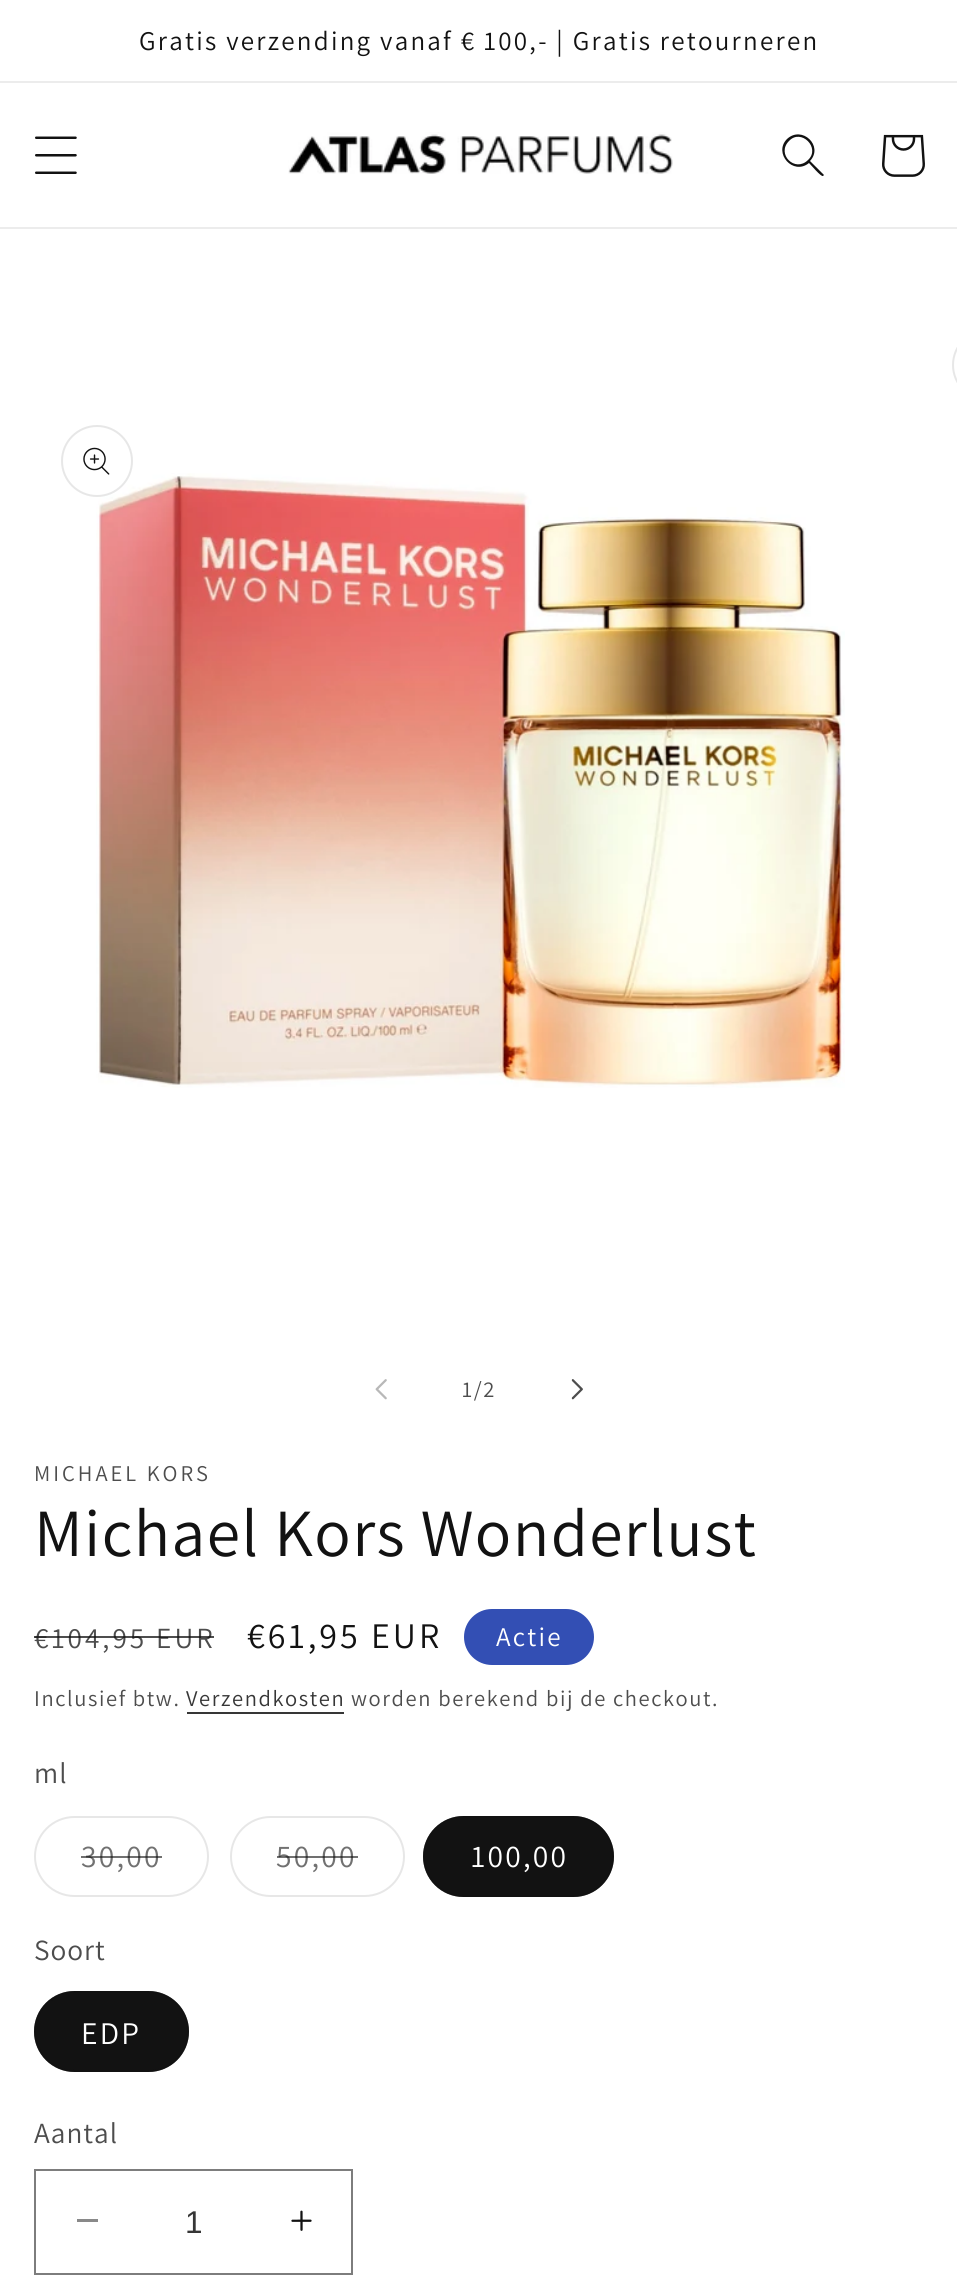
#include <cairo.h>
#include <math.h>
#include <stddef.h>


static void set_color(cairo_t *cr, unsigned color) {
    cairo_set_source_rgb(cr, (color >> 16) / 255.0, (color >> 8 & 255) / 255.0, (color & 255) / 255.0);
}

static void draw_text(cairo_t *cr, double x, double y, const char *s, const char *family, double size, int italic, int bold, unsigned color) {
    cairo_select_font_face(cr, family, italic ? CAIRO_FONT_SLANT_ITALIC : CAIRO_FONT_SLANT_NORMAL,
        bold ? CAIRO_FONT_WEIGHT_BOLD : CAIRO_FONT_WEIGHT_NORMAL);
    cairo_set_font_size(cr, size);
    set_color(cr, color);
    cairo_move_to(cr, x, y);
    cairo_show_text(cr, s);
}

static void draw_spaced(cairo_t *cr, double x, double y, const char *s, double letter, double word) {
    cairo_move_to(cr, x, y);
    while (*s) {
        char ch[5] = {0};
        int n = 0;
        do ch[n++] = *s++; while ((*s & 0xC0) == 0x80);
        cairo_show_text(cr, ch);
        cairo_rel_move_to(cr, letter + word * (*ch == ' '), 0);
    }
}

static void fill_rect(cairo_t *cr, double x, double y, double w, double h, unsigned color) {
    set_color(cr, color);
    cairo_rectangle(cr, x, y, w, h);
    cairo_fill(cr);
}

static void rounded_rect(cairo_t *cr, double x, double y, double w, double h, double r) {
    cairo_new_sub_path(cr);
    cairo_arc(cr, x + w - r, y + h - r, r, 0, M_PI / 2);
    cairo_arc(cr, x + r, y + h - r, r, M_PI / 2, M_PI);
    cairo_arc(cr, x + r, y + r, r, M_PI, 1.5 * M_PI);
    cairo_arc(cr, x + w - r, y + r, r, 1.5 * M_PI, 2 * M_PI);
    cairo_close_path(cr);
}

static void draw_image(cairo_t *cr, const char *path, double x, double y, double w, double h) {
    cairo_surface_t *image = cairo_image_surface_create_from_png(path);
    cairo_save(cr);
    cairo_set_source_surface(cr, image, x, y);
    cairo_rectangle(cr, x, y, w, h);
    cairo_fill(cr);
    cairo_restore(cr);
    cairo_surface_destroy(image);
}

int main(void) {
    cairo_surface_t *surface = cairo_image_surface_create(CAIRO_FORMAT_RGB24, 957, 2290);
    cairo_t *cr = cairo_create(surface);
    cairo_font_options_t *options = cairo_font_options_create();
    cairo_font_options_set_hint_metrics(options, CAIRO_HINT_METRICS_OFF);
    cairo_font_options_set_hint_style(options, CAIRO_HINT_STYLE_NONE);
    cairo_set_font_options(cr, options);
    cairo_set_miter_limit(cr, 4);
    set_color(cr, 0xFFFFFF);
    cairo_paint(cr);
    fill_rect(cr, 0, 81, 957, 2, 0xECECEC);
    cairo_select_font_face(cr, "Assistant", CAIRO_FONT_SLANT_NORMAL, CAIRO_FONT_WEIGHT_NORMAL);
    cairo_set_font_size(cr, 27);
    set_color(cr, 0x121212);
    draw_spaced(cr, 139, 50, "Gratis verzending vanaf € 100,- | Gratis retourneren", 2.25, 0);
    fill_rect(cr, 0, 227, 957, 2, 0xECECEC);
    draw_image(cr, "assets/img1.png", 35, 136, 42, 38);
    draw_image(cr, "assets/img2.png", 288, 132, 385, 42);
    set_color(cr, 0x121212);
    cairo_set_fill_rule(cr, CAIRO_FILL_RULE_EVEN_ODD);
    cairo_new_path(cr);
    cairo_move_to(cr, 808, 160);
    cairo_curve_to(cr, 795, 173, 776, 154, 789, 141);
    cairo_curve_to(cr, 801, 128, 821, 148, 808, 160);
    cairo_close_path(cr);
    cairo_move_to(cr, 809, 163);
    cairo_curve_to(cr, 793, 176, 773, 153, 787, 139);
    cairo_curve_to(cr, 802, 125, 824, 146, 810, 161);
    cairo_line_to(cr, 824, 175);
    cairo_line_to(cr, 823, 176);
    cairo_curve_to(cr, 821, 177, 811, 165, 809, 163);
    cairo_close_path(cr);
    cairo_fill(cr);
    draw_image(cr, "assets/img3.png", 882, 134, 43, 43);
    rounded_rect(cr, 953, 330, 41, 70, 35);
    set_color(cr, 0xE7E7E7);
    cairo_stroke(cr);
    draw_image(cr, "assets/img5.png", 96, 473, 749, 615);
    cairo_arc(cr, 97, 461, 35, 0, 2 * M_PI);
    cairo_stroke(cr);
    draw_image(cr, "assets/img4.png", 83, 447, 27, 28);
    draw_image(cr, "assets/img6.png", 375, 1379, 12, 21);
    cairo_set_font_size(cr, 22.5);
    set_color(cr, 0x4D4D4D);
    draw_spaced(cr, 462, 1397, "1/2", 1.6, 0);
    draw_image(cr, "assets/img7.png", 571, 1379, 12, 21);
    draw_spaced(cr, 34, 1481, "MICHAEL KORS", 3, 0);
    cairo_set_font_size(cr, 67.5);
    set_color(cr, 0x121212);
    draw_spaced(cr, 34, 1556, "Michael Kors Wonderlust", 1.35, 0);
    cairo_set_font_size(cr, 29.25);
    set_color(cr, 0x4D4D4D);
    draw_spaced(cr, 34, 1648, "€104,95 EUR", 3, 0);
    cairo_set_source_rgba(cr, 0.071, 0.071, 0.071, 0.75);
    cairo_rectangle(cr, 34, 1636, 180, 2);
    cairo_fill(cr);
    cairo_set_font_size(cr, 36);
    set_color(cr, 0x121212);
    draw_spaced(cr, 247, 1648, "€61,95 EUR", 3, 0);
    set_color(cr, 0x334FB4);
    rounded_rect(cr, 465, 1610, 128, 54, 27);
    cairo_fill_preserve(cr);
    cairo_stroke(cr);
    cairo_set_font_size(cr, 27);
    set_color(cr, 0xFFFFFF);
    draw_spaced(cr, 496, 1646, "Actie", 2.25, 0);
    cairo_set_font_size(cr, 22.5);
    set_color(cr, 0x4D4D4D);
    draw_spaced(cr, 34, 1706, "Inclusief btw.", 1.6, 0);
    set_color(cr, 0x363636);
    draw_spaced(cr, 186, 1706, "Verzendkosten", 1.6, 0);
    fill_rect(cr, 187, 1712, 157, 2, 0x363636);
    set_color(cr, 0x4D4D4D);
    draw_spaced(cr, 351, 1706, "worden berekend bij de checkout.", 1.6, 0);
    cairo_set_font_size(cr, 29.25);
    draw_spaced(cr, 34, 1783, "ml", 1, 0);
    rounded_rect(cr, 35, 1817, 173, 79, 39.5);
    set_color(cr, 0xE7E7E7);
    cairo_stroke(cr);
    cairo_set_font_size(cr, 31.5);
    set_color(cr, 0x717171);
    draw_spaced(cr, 81, 1867, "30,00", 2.25, 0);
    cairo_set_source_rgba(cr, 0.071, 0.071, 0.071, 0.6);
    cairo_rectangle(cr, 81, 1856, 81, 2);
    cairo_fill(cr);
    rounded_rect(cr, 231, 1817, 173, 79, 39.5);
    set_color(cr, 0xE7E7E7);
    cairo_stroke(cr);
    set_color(cr, 0x717171);
    draw_spaced(cr, 276, 1867, "50,00", 2.25, 0);
    cairo_set_source_rgba(cr, 0.071, 0.071, 0.071, 0.6);
    cairo_rectangle(cr, 277, 1856, 81, 2);
    cairo_fill(cr);
    set_color(cr, 0x121212);
    rounded_rect(cr, 423, 1816, 191, 81, 40.5);
    cairo_fill(cr);
    rounded_rect(cr, 424, 1817, 189, 79, 39.5);
    cairo_set_source_rgba(cr, 0.071, 0.071, 0.071, 0.55);
    cairo_stroke(cr);
    set_color(cr, 0xFFFFFF);
    draw_spaced(cr, 471, 1867, "100,00", 2.25, 0);
    cairo_set_font_size(cr, 29.25);
    set_color(cr, 0x4D4D4D);
    draw_spaced(cr, 34, 1960, "Soort", 1, 0);
    set_color(cr, 0x121212);
    rounded_rect(cr, 34, 1991, 155, 81, 40.5);
    cairo_fill(cr);
    rounded_rect(cr, 35, 1992, 153, 79, 39.5);
    cairo_set_source_rgba(cr, 0.071, 0.071, 0.071, 0.55);
    cairo_stroke(cr);
    cairo_set_font_size(cr, 31.5);
    set_color(cr, 0xFFFFFF);
    draw_spaced(cr, 81, 2044, "EDP", 2.25, 0);
    cairo_set_font_size(cr, 29.25);
    set_color(cr, 0x4D4D4D);
    draw_spaced(cr, 34, 2143, "Aantal", 1, 0);
    fill_rect(cr, 77, 2219, 21, 3, 0x898989);
    draw_image(cr, "assets/img8.png", 291, 2210, 21, 21);
    cairo_rectangle(cr, 35, 2170, 317, 104);
    set_color(cr, 0x7D7D7D);
    cairo_stroke(cr);
    draw_text(cr, 185, 2233, "1", "Liberation Sans", 31.5, 0, 0, 0x363636);
    cairo_surface_write_to_png(surface, "output.png");
    cairo_font_options_destroy(options);
    cairo_destroy(cr);
    cairo_surface_destroy(surface);
    return 0;
}
